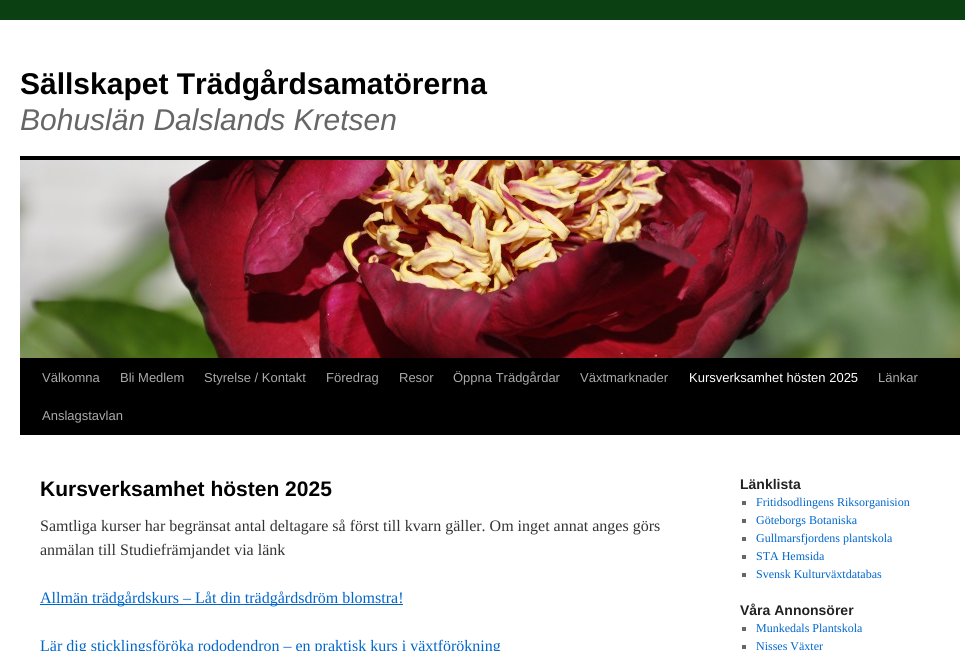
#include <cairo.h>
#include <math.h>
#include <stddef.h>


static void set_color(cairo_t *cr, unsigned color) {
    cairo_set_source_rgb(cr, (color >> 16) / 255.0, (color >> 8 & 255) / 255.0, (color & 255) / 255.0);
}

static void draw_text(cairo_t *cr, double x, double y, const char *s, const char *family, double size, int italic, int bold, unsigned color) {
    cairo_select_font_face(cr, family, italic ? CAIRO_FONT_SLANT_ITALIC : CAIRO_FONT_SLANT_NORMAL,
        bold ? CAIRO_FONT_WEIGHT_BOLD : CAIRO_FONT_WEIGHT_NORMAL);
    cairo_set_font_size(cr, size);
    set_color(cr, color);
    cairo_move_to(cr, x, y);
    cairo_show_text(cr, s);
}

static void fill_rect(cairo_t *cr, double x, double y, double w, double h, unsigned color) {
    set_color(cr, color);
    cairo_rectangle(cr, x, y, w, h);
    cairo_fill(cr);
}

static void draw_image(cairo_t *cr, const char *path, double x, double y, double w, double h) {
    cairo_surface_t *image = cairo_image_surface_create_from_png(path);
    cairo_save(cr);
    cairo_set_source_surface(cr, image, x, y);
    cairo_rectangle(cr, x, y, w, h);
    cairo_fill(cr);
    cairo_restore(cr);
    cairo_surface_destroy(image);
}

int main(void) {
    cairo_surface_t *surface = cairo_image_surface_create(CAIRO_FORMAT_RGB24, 965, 651);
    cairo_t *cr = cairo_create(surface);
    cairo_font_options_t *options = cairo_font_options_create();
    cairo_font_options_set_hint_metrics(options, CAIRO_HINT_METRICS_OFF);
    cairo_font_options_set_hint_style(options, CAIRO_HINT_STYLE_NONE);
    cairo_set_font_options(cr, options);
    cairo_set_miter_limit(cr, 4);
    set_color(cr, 0x0B4112);
    cairo_paint(cr);
    fill_rect(cr, 0, 20, 965, 631, 0xFFFFFF);
    draw_text(cr, 20, 94, "Sällskapet Trädgårdsamatörerna", "Liberation Sans", 30, 0, 1, 0x000000);
    draw_text(cr, 20, 130, "Bohuslän Dalslands Kretsen", "Liberation Sans", 30, 1, 0, 0x666666);
    fill_rect(cr, 20, 156, 940, 4, 0x000000);
    fill_rect(cr, 20, 358, 940, 77, 0x000000);
    draw_image(cr, "assets/img1.png", 20, 160, 940, 198);
    draw_text(cr, 42, 382, "Välkomna", "Liberation Sans", 13, 0, 0, 0xAAAAAA);
    draw_text(cr, 120, 382, "Bli Medlem", "Liberation Sans", 13, 0, 0, 0xAAAAAA);
    draw_text(cr, 204, 382, "Styrelse / Kontakt", "Liberation Sans", 13, 0, 0, 0xAAAAAA);
    draw_text(cr, 326, 382, "Föredrag", "Liberation Sans", 13, 0, 0, 0xAAAAAA);
    draw_text(cr, 399, 382, "Resor", "Liberation Sans", 13, 0, 0, 0xAAAAAA);
    draw_text(cr, 453, 382, "Öppna Trädgårdar", "Liberation Sans", 13, 0, 0, 0xAAAAAA);
    draw_text(cr, 580, 382, "Växtmarknader", "Liberation Sans", 13, 0, 0, 0xAAAAAA);
    draw_text(cr, 689, 382, "Kursverksamhet hösten 2025", "Liberation Sans", 13, 0, 0, 0xFFFFFF);
    draw_text(cr, 878, 382, "Länkar", "Liberation Sans", 13, 0, 0, 0xAAAAAA);
    draw_text(cr, 42, 420, "Anslagstavlan", "Liberation Sans", 13, 0, 0, 0xAAAAAA);
    draw_text(cr, 40, 496, "Kursverksamhet hösten 2025", "Liberation Sans", 21, 0, 1, 0x000000);
    draw_text(cr, 40, 531, "Samtliga kurser har begränsat antal deltagare så först till kvarn gäller. Om inget annat anges görs", "Liberation Serif", 16, 0, 0, 0x333333);
    draw_text(cr, 40, 555, "anmälan till Studiefrämjandet via länk", "Liberation Serif", 16, 0, 0, 0x333333);
    fill_rect(cr, 40, 604, 363, 1, 0x0066CC);
    draw_text(cr, 40, 603, "Allmän trädgårdskurs – Låt din trädgårdsdröm blomstra!", "Liberation Serif", 16, 0, 0, 0x0066CC);
    draw_text(cr, 40, 651, "Lär dig sticklingsföröka rododendron – en praktisk kurs i växtförökning", "Liberation Serif", 16, 0, 0, 0x0066CC);
    draw_text(cr, 740, 489, "Länklista", "Liberation Sans", 14, 0, 1, 0x222222);
    fill_rect(cr, 742, 501, 4, 4, 0x666666);
    draw_text(cr, 756, 506, "Fritidsodlingens Riksorganision", "Liberation Serif", 12, 0, 0, 0x0066CC);
    fill_rect(cr, 742, 519, 4, 4, 0x666666);
    draw_text(cr, 756, 524, "Göteborgs Botaniska", "Liberation Serif", 12, 0, 0, 0x0066CC);
    fill_rect(cr, 742, 537, 4, 4, 0x666666);
    draw_text(cr, 756, 542, "Gullmarsfjordens plantskola", "Liberation Serif", 12, 0, 0, 0x0066CC);
    fill_rect(cr, 742, 555, 4, 4, 0x666666);
    draw_text(cr, 756, 560, "STA Hemsida", "Liberation Serif", 12, 0, 0, 0x0066CC);
    fill_rect(cr, 742, 573, 4, 4, 0x666666);
    draw_text(cr, 756, 578, "Svensk Kulturväxtdatabas", "Liberation Serif", 12, 0, 0, 0x0066CC);
    draw_text(cr, 740, 615, "Våra Annonsörer", "Liberation Sans", 14, 0, 1, 0x222222);
    fill_rect(cr, 742, 627, 4, 4, 0x666666);
    draw_text(cr, 756, 632, "Munkedals Plantskola", "Liberation Serif", 12, 0, 0, 0x0066CC);
    fill_rect(cr, 742, 645, 4, 4, 0x666666);
    draw_text(cr, 756, 650, "Nisses Växter", "Liberation Serif", 12, 0, 0, 0x0066CC);
    cairo_surface_write_to_png(surface, "output.png");
    cairo_font_options_destroy(options);
    cairo_destroy(cr);
    cairo_surface_destroy(surface);
    return 0;
}
